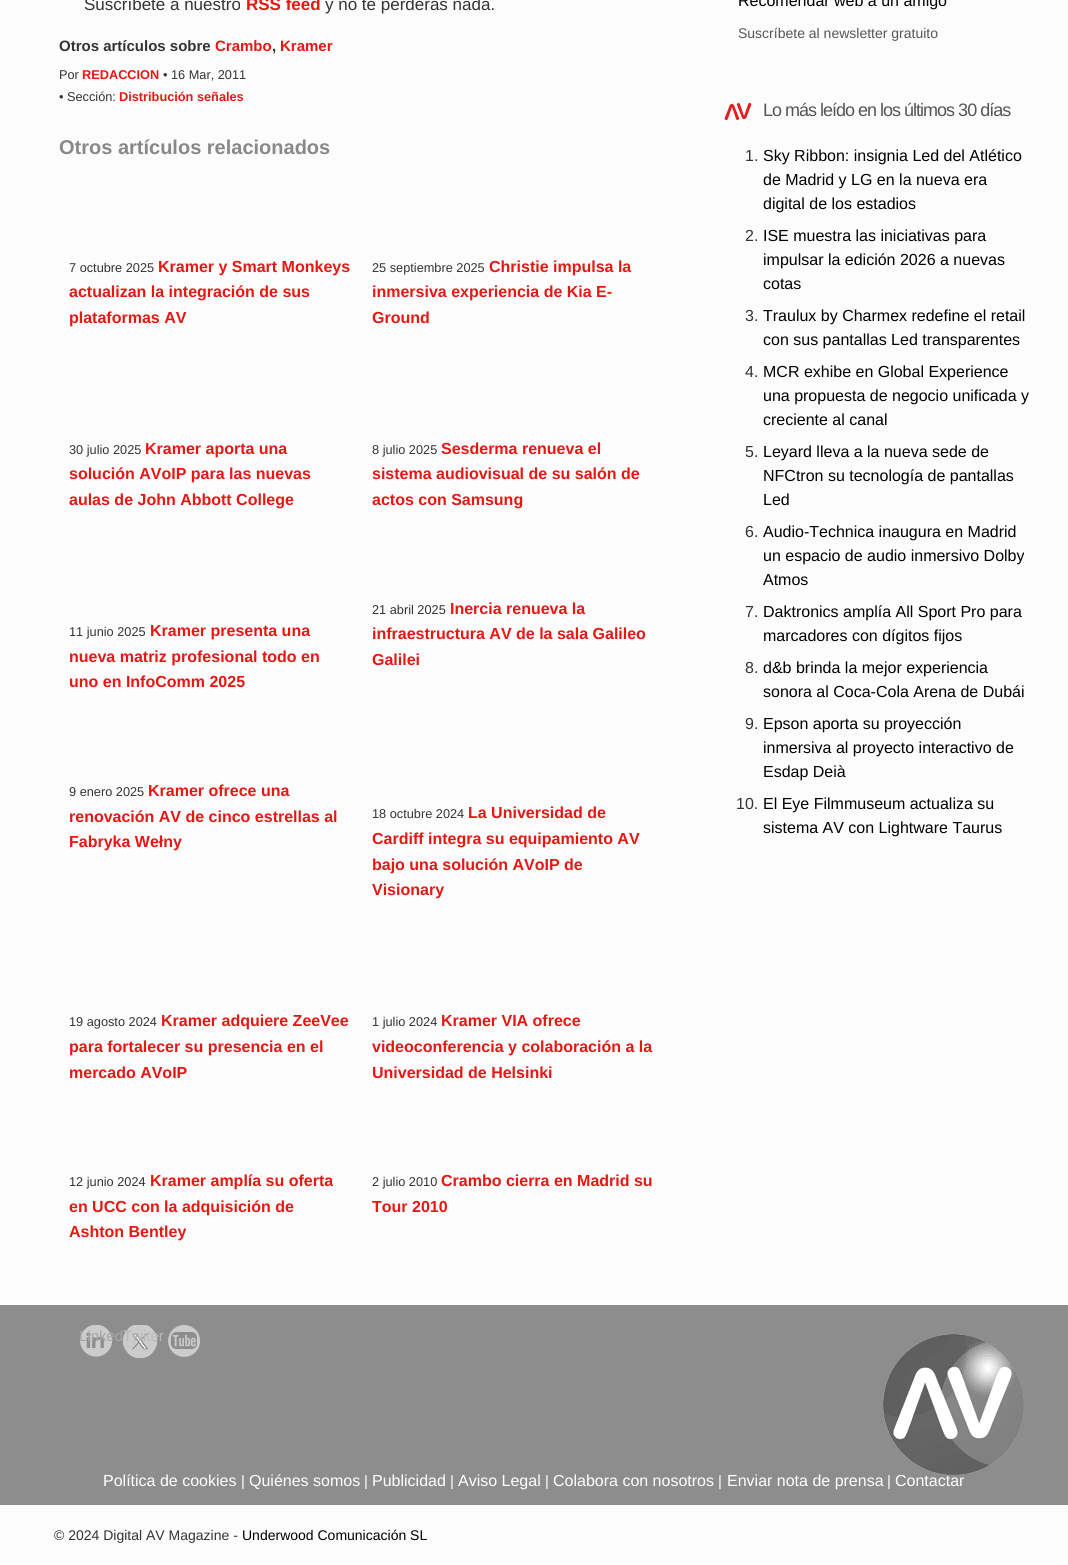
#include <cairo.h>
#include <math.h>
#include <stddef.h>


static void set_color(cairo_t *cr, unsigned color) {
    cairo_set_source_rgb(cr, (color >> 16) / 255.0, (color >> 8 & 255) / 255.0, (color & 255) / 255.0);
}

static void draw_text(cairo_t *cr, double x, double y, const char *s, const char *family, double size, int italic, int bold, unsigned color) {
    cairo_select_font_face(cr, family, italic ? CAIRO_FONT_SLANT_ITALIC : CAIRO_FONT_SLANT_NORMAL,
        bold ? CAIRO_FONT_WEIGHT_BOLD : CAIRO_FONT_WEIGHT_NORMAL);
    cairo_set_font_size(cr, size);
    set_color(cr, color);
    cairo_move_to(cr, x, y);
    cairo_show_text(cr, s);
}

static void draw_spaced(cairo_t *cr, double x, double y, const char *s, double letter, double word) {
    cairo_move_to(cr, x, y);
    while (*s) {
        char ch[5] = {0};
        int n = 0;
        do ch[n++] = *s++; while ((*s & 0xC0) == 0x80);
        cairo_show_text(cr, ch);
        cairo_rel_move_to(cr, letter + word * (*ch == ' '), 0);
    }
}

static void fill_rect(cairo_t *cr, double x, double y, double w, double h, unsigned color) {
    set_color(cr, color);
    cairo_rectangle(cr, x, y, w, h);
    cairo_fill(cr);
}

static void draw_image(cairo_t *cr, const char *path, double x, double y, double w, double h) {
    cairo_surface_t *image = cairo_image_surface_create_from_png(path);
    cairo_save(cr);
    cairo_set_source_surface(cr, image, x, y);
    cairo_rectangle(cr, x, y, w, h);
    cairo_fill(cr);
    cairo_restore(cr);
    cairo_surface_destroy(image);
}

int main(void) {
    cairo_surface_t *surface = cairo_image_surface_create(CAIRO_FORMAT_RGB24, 1068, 1565);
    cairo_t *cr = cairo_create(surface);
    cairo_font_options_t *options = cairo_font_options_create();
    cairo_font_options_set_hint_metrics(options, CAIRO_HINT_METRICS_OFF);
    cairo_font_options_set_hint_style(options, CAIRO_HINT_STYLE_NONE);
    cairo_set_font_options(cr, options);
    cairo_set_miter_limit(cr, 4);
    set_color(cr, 0xFCFCFC);
    cairo_paint(cr);
    draw_text(cr, 84, 10, "Suscríbete a nuestro", "Liberation Sans", 17, 0, 0, 0x333333);
    draw_text(cr, 246, 10, "RSS feed", "Liberation Sans", 17, 0, 1, 0xE51813);
    draw_text(cr, 325, 10, "y no te perderás nada.", "Liberation Sans", 17, 0, 0, 0x333333);
    draw_text(cr, 59, 51, "Otros artículos sobre", "Liberation Sans", 15, 0, 1, 0x333333);
    draw_text(cr, 215, 51, "Crambo", "Liberation Sans", 15, 0, 1, 0xE51813);
    draw_text(cr, 272, 51, ",", "Liberation Sans", 15, 0, 1, 0x333333);
    draw_text(cr, 280, 51, "Kramer", "Liberation Sans", 15, 0, 1, 0xE51813);
    draw_text(cr, 59, 79, "Por", "Liberation Sans", 12.75, 0, 0, 0x333333);
    draw_text(cr, 82, 79, "REDACCION", "Liberation Sans", 12.75, 0, 1, 0xE51813);
    draw_text(cr, 163, 79, "• 16 Mar, 2011", "Liberation Sans", 12.75, 0, 0, 0x333333);
    draw_text(cr, 59, 101, "• Sección:", "Liberation Sans", 12.75, 0, 0, 0x333333);
    draw_text(cr, 119, 101, "Distribución señales", "Liberation Sans", 12.75, 0, 1, 0xE51813);
    draw_text(cr, 59, 154, "Otros artículos relacionados", "Liberation Sans", 20, 0, 1, 0x888888);
    draw_text(cr, 69, 272, "7 octubre 2025", "Liberation Sans", 12.75, 0, 0, 0x333333);
    draw_text(cr, 158, 272, "Kramer y Smart Monkeys", "Liberation Sans", 16, 0, 1, 0xE51813);
    draw_text(cr, 69, 297, "actualizan la integración de sus", "Liberation Sans", 16, 0, 1, 0xE51813);
    draw_text(cr, 69, 323, "plataformas AV", "Liberation Sans", 16, 0, 1, 0xE51813);
    draw_text(cr, 372, 272, "25 septiembre 2025", "Liberation Sans", 12.75, 0, 0, 0x333333);
    draw_text(cr, 489, 272, "Christie impulsa la", "Liberation Sans", 16, 0, 1, 0xE51813);
    draw_text(cr, 372, 297, "inmersiva experiencia de Kia E-", "Liberation Sans", 16, 0, 1, 0xE51813);
    draw_text(cr, 372, 323, "Ground", "Liberation Sans", 16, 0, 1, 0xE51813);
    draw_text(cr, 69, 454, "30 julio 2025", "Liberation Sans", 12.75, 0, 0, 0x333333);
    draw_text(cr, 145, 454, "Kramer aporta una", "Liberation Sans", 16, 0, 1, 0xE51813);
    draw_text(cr, 69, 479, "solución AVoIP para las nuevas", "Liberation Sans", 16, 0, 1, 0xE51813);
    draw_text(cr, 69, 505, "aulas de John Abbott College", "Liberation Sans", 16, 0, 1, 0xE51813);
    draw_text(cr, 372, 454, "8 julio 2025", "Liberation Sans", 12.75, 0, 0, 0x333333);
    draw_text(cr, 441, 454, "Sesderma renueva el", "Liberation Sans", 16, 0, 1, 0xE51813);
    draw_text(cr, 372, 479, "sistema audiovisual de su salón de", "Liberation Sans", 16, 0, 1, 0xE51813);
    draw_text(cr, 372, 505, "actos con Samsung", "Liberation Sans", 16, 0, 1, 0xE51813);
    draw_text(cr, 69, 636, "11 junio 2025", "Liberation Sans", 12.75, 0, 0, 0x333333);
    draw_text(cr, 150, 636, "Kramer presenta una", "Liberation Sans", 16, 0, 1, 0xE51813);
    draw_text(cr, 69, 662, "nueva matriz profesional todo en", "Liberation Sans", 16, 0, 1, 0xE51813);
    draw_text(cr, 69, 687, "uno en InfoComm 2025", "Liberation Sans", 16, 0, 1, 0xE51813);
    draw_text(cr, 372, 614, "21 abril 2025", "Liberation Sans", 12.75, 0, 0, 0x333333);
    draw_text(cr, 450, 614, "Inercia renueva la", "Liberation Sans", 16, 0, 1, 0xE51813);
    draw_text(cr, 372, 639, "infraestructura AV de la sala Galileo", "Liberation Sans", 16, 0, 1, 0xE51813);
    draw_text(cr, 372, 665, "Galilei", "Liberation Sans", 16, 0, 1, 0xE51813);
    draw_text(cr, 69, 796, "9 enero 2025", "Liberation Sans", 12.75, 0, 0, 0x333333);
    draw_text(cr, 148, 796, "Kramer ofrece una", "Liberation Sans", 16, 0, 1, 0xE51813);
    draw_text(cr, 69, 822, "renovación AV de cinco estrellas al", "Liberation Sans", 16, 0, 1, 0xE51813);
    draw_text(cr, 69, 847, "Fabryka Wełny", "Liberation Sans", 16, 0, 1, 0xE51813);
    draw_text(cr, 372, 818, "18 octubre 2024", "Liberation Sans", 12.75, 0, 0, 0x333333);
    draw_text(cr, 468, 818, "La Universidad de", "Liberation Sans", 16, 0, 1, 0xE51813);
    draw_text(cr, 372, 844, "Cardiff integra su equipamiento AV", "Liberation Sans", 16, 0, 1, 0xE51813);
    draw_text(cr, 372, 870, "bajo una solución AVoIP de", "Liberation Sans", 16, 0, 1, 0xE51813);
    draw_text(cr, 372, 895, "Visionary", "Liberation Sans", 16, 0, 1, 0xE51813);
    draw_text(cr, 69, 1026, "19 agosto 2024", "Liberation Sans", 12.75, 0, 0, 0x333333);
    draw_text(cr, 161, 1026, "Kramer adquiere ZeeVee", "Liberation Sans", 16, 0, 1, 0xE51813);
    draw_text(cr, 69, 1052, "para fortalecer su presencia en el", "Liberation Sans", 16, 0, 1, 0xE51813);
    draw_text(cr, 69, 1078, "mercado AVoIP", "Liberation Sans", 16, 0, 1, 0xE51813);
    draw_text(cr, 372, 1026, "1 julio 2024", "Liberation Sans", 12.75, 0, 0, 0x333333);
    draw_text(cr, 441, 1026, "Kramer VIA ofrece", "Liberation Sans", 16, 0, 1, 0xE51813);
    draw_text(cr, 372, 1052, "videoconferencia y colaboración a la", "Liberation Sans", 16, 0, 1, 0xE51813);
    draw_text(cr, 372, 1078, "Universidad de Helsinki", "Liberation Sans", 16, 0, 1, 0xE51813);
    draw_text(cr, 69, 1186, "12 junio 2024", "Liberation Sans", 12.75, 0, 0, 0x333333);
    draw_text(cr, 150, 1186, "Kramer amplía su oferta", "Liberation Sans", 16, 0, 1, 0xE51813);
    draw_text(cr, 69, 1212, "en UCC con la adquisición de", "Liberation Sans", 16, 0, 1, 0xE51813);
    draw_text(cr, 69, 1237, "Ashton Bentley", "Liberation Sans", 16, 0, 1, 0xE51813);
    draw_text(cr, 372, 1186, "2 julio 2010", "Liberation Sans", 12.75, 0, 0, 0x333333);
    draw_text(cr, 441, 1186, "Crambo cierra en Madrid su", "Liberation Sans", 16, 0, 1, 0xE51813);
    draw_text(cr, 372, 1212, "Tour 2010", "Liberation Sans", 16, 0, 1, 0xE51813);
    draw_text(cr, 738, 6, "Recomendar web a un amigo", "Liberation Sans", 16, 0, 0, 0x000000);
    draw_text(cr, 738, 38, "Suscríbete al newsletter gratuito", "Liberation Sans", 14, 0, 0, 0x555555);
    draw_image(cr, "assets/img1.png", 724, 103, 28, 17);
    cairo_set_font_size(cr, 18);
    draw_spaced(cr, 763, 116, "Lo más leído en los últimos 30 días", -1, 0);
    draw_text(cr, 745, 161, "1.", "Liberation Sans", 16, 0, 0, 0x333333);
    draw_text(cr, 763, 161, "Sky Ribbon: insignia Led del Atlético", "Liberation Sans", 16, 0, 0, 0x000000);
    draw_text(cr, 763, 185, "de Madrid y LG en la nueva era", "Liberation Sans", 16, 0, 0, 0x000000);
    draw_text(cr, 763, 209, "digital de los estadios", "Liberation Sans", 16, 0, 0, 0x000000);
    draw_text(cr, 745, 241, "2.", "Liberation Sans", 16, 0, 0, 0x333333);
    draw_text(cr, 763, 241, "ISE muestra las iniciativas para", "Liberation Sans", 16, 0, 0, 0x000000);
    draw_text(cr, 763, 265, "impulsar la edición 2026 a nuevas", "Liberation Sans", 16, 0, 0, 0x000000);
    draw_text(cr, 763, 289, "cotas", "Liberation Sans", 16, 0, 0, 0x000000);
    draw_text(cr, 745, 321, "3.", "Liberation Sans", 16, 0, 0, 0x333333);
    draw_text(cr, 763, 321, "Traulux by Charmex redefine el retail", "Liberation Sans", 16, 0, 0, 0x000000);
    draw_text(cr, 763, 345, "con sus pantallas Led transparentes", "Liberation Sans", 16, 0, 0, 0x000000);
    draw_text(cr, 745, 377, "4.", "Liberation Sans", 16, 0, 0, 0x333333);
    draw_text(cr, 763, 377, "MCR exhibe en Global Experience", "Liberation Sans", 16, 0, 0, 0x000000);
    draw_text(cr, 763, 401, "una propuesta de negocio unificada y", "Liberation Sans", 16, 0, 0, 0x000000);
    draw_text(cr, 763, 425, "creciente al canal", "Liberation Sans", 16, 0, 0, 0x000000);
    draw_text(cr, 745, 457, "5.", "Liberation Sans", 16, 0, 0, 0x333333);
    draw_text(cr, 763, 457, "Leyard lleva a la nueva sede de", "Liberation Sans", 16, 0, 0, 0x000000);
    draw_text(cr, 763, 481, "NFCtron su tecnología de pantallas", "Liberation Sans", 16, 0, 0, 0x000000);
    draw_text(cr, 763, 505, "Led", "Liberation Sans", 16, 0, 0, 0x000000);
    draw_text(cr, 745, 537, "6.", "Liberation Sans", 16, 0, 0, 0x333333);
    draw_text(cr, 763, 537, "Audio-Technica inaugura en Madrid", "Liberation Sans", 16, 0, 0, 0x000000);
    draw_text(cr, 763, 561, "un espacio de audio inmersivo Dolby", "Liberation Sans", 16, 0, 0, 0x000000);
    draw_text(cr, 763, 585, "Atmos", "Liberation Sans", 16, 0, 0, 0x000000);
    draw_text(cr, 745, 617, "7.", "Liberation Sans", 16, 0, 0, 0x333333);
    draw_text(cr, 763, 617, "Daktronics amplía All Sport Pro para", "Liberation Sans", 16, 0, 0, 0x000000);
    draw_text(cr, 763, 641, "marcadores con dígitos fijos", "Liberation Sans", 16, 0, 0, 0x000000);
    draw_text(cr, 745, 673, "8.", "Liberation Sans", 16, 0, 0, 0x333333);
    draw_text(cr, 763, 673, "d&b brinda la mejor experiencia", "Liberation Sans", 16, 0, 0, 0x000000);
    draw_text(cr, 763, 697, "sonora al Coca-Cola Arena de Dubái", "Liberation Sans", 16, 0, 0, 0x000000);
    draw_text(cr, 745, 729, "9.", "Liberation Sans", 16, 0, 0, 0x333333);
    draw_text(cr, 763, 729, "Epson aporta su proyección", "Liberation Sans", 16, 0, 0, 0x000000);
    draw_text(cr, 763, 753, "inmersiva al proyecto interactivo de", "Liberation Sans", 16, 0, 0, 0x000000);
    draw_text(cr, 763, 777, "Esdap Deià", "Liberation Sans", 16, 0, 0, 0x000000);
    draw_text(cr, 736, 809, "10.", "Liberation Sans", 16, 0, 0, 0x333333);
    draw_text(cr, 763, 809, "El Eye Filmmuseum actualiza su", "Liberation Sans", 16, 0, 0, 0x000000);
    draw_text(cr, 763, 833, "sistema AV con Lightware Taurus", "Liberation Sans", 16, 0, 0, 0x000000);
    fill_rect(cr, 0, 1305, 1068, 200, 0x8D8D8D);
    draw_image(cr, "assets/img2.png", 883, 1334, 141, 141);
    draw_image(cr, "assets/img3.png", 80, 1325, 33, 32);
    draw_text(cr, 79, 1341, "Linkedin", "Liberation Sans", 15, 0, 0, 0xA6A6A6);
    draw_image(cr, "assets/img4.png", 123, 1325, 34, 33);
    draw_text(cr, 123, 1341, "Twiter", "Liberation Sans", 15, 0, 0, 0xB9B9B9);
    draw_image(cr, "assets/img5.png", 168, 1325, 33, 32);
    draw_text(cr, 103, 1486, "Política de cookies", "Liberation Sans", 16, 0, 0, 0xFFFFFF);
    draw_text(cr, 241, 1486, "|", "Liberation Sans", 15, 0, 0, 0xFFFFFF);
    draw_text(cr, 249, 1486, "Quiénes somos", "Liberation Sans", 16, 0, 0, 0xFFFFFF);
    draw_text(cr, 364, 1486, "|", "Liberation Sans", 15, 0, 0, 0xFFFFFF);
    draw_text(cr, 372, 1486, "Publicidad", "Liberation Sans", 16, 0, 0, 0xFFFFFF);
    draw_text(cr, 450, 1486, "|", "Liberation Sans", 15, 0, 0, 0xFFFFFF);
    draw_text(cr, 458, 1486, "Aviso Legal", "Liberation Sans", 16, 0, 0, 0xFFFFFF);
    draw_text(cr, 545, 1486, "|", "Liberation Sans", 15, 0, 0, 0xFFFFFF);
    draw_text(cr, 553, 1486, "Colabora con nosotros", "Liberation Sans", 16, 0, 0, 0xFFFFFF);
    draw_text(cr, 718, 1486, "|", "Liberation Sans", 15, 0, 0, 0xFFFFFF);
    draw_text(cr, 727, 1486, "Enviar nota de prensa", "Liberation Sans", 16, 0, 0, 0xFFFFFF);
    draw_text(cr, 887, 1486, "|", "Liberation Sans", 15, 0, 0, 0xFFFFFF);
    draw_text(cr, 895, 1486, "Contactar", "Liberation Sans", 16, 0, 0, 0xFFFFFF);
    draw_text(cr, 54, 1540, "© 2024 Digital AV Magazine -", "Liberation Sans", 14, 0, 0, 0x333333);
    draw_text(cr, 242, 1540, "Underwood Comunicación SL", "Liberation Sans", 14, 0, 0, 0x000000);
    cairo_surface_write_to_png(surface, "output.png");
    cairo_font_options_destroy(options);
    cairo_destroy(cr);
    cairo_surface_destroy(surface);
    return 0;
}
